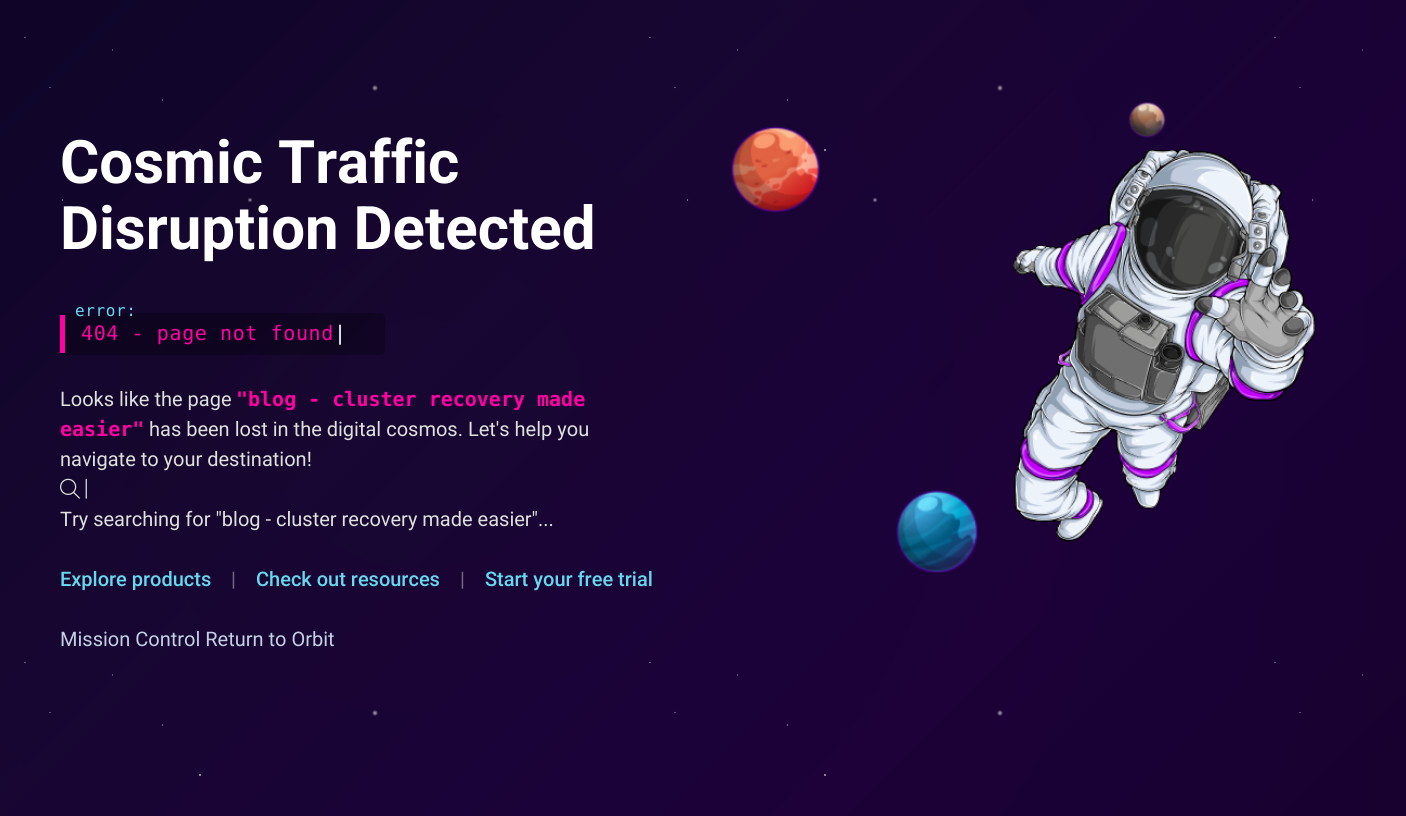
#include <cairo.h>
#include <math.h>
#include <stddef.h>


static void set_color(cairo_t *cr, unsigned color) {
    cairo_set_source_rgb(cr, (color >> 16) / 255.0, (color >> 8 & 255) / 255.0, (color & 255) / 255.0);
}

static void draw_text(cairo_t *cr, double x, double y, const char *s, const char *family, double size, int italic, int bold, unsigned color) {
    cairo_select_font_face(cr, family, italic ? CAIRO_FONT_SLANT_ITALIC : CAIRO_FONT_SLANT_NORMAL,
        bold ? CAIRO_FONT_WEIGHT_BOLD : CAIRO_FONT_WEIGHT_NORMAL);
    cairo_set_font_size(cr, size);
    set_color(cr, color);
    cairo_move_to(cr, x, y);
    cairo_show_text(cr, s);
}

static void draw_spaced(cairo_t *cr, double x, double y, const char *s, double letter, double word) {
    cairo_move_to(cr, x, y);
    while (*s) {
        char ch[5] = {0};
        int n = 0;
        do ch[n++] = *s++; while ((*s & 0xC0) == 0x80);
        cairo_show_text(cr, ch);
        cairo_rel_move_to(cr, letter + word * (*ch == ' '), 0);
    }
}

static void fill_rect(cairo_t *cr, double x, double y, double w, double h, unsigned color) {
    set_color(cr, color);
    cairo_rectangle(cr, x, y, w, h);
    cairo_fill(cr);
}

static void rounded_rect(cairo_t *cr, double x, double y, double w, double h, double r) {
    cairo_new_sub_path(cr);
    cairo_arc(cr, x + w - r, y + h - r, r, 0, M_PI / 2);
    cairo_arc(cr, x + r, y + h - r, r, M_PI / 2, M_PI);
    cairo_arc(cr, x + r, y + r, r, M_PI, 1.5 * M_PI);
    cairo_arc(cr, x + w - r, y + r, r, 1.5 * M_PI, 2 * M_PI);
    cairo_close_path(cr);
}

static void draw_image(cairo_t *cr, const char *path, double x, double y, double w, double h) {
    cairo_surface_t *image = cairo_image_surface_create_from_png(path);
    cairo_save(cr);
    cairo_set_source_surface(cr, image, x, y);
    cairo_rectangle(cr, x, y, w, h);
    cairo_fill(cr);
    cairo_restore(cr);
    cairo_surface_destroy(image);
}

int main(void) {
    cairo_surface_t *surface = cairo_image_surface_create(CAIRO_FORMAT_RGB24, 1406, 816);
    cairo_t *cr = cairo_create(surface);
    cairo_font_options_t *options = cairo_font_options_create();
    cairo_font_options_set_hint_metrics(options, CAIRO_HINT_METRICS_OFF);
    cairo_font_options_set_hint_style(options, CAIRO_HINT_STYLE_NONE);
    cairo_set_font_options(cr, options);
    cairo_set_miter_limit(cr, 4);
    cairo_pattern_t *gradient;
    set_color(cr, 0xFFFFFF);
    cairo_paint(cr);
    gradient = cairo_pattern_create_linear(148, -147, 1259, 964);
    cairo_pattern_add_color_stop_rgba(gradient, 0, 0.051, 0.016, 0.133, 1);
    cairo_pattern_add_color_stop_rgba(gradient, 0.25, 0.075, 0.024, 0.161, 1);
    cairo_pattern_add_color_stop_rgba(gradient, 0.7, 0.098, 0, 0.204, 1);
    cairo_pattern_add_color_stop_rgba(gradient, 1, 0.086, 0, 0.165, 1);
    cairo_set_source(cr, gradient);
    cairo_pattern_destroy(gradient);
    cairo_rectangle(cr, 0, 0, 1406, 816);
    cairo_fill(cr);
    cairo_new_path(cr);
    cairo_move_to(cr, 500, 250);
    cairo_line_to(cr, 1125.2, 250);
    cairo_set_source_rgba(cr, 1, 1, 1, 0.56);
    cairo_set_line_width(cr, 1.2);
    cairo_set_line_cap(cr, CAIRO_LINE_CAP_ROUND);
    cairo_set_dash(cr, (double[]){0, 625}, 2, 0);
    cairo_stroke(cr);
    gradient = cairo_pattern_create_radial(375, 88, 0, 375, 88, 3.1);
    cairo_pattern_add_color_stop_rgba(gradient, 0, 1, 1, 1, 0.72);
    cairo_pattern_add_color_stop_rgba(gradient, 1, 1, 1, 1, 0);
    cairo_set_source(cr, gradient);
    cairo_pattern_destroy(gradient);
    cairo_rectangle(cr, 372, 85, 6, 6);
    cairo_fill(cr);
    gradient = cairo_pattern_create_radial(1000, 88, 0, 1000, 88, 3.1);
    cairo_pattern_add_color_stop_rgba(gradient, 0, 1, 1, 1, 0.72);
    cairo_pattern_add_color_stop_rgba(gradient, 1, 1, 1, 1, 0);
    cairo_set_source(cr, gradient);
    cairo_pattern_destroy(gradient);
    cairo_rectangle(cr, 997, 85, 6, 6);
    cairo_fill(cr);
    gradient = cairo_pattern_create_radial(375, 713, 0, 375, 713, 3.1);
    cairo_pattern_add_color_stop_rgba(gradient, 0, 1, 1, 1, 0.72);
    cairo_pattern_add_color_stop_rgba(gradient, 1, 1, 1, 1, 0);
    cairo_set_source(cr, gradient);
    cairo_pattern_destroy(gradient);
    cairo_rectangle(cr, 372, 710, 6, 6);
    cairo_fill(cr);
    gradient = cairo_pattern_create_radial(1000, 713, 0, 1000, 713, 3.1);
    cairo_pattern_add_color_stop_rgba(gradient, 0, 1, 1, 1, 0.72);
    cairo_pattern_add_color_stop_rgba(gradient, 1, 1, 1, 1, 0);
    cairo_set_source(cr, gradient);
    cairo_pattern_destroy(gradient);
    cairo_rectangle(cr, 997, 710, 6, 6);
    cairo_fill(cr);
    gradient = cairo_pattern_create_radial(250, 200, 0, 250, 200, 2.5);
    cairo_pattern_add_color_stop_rgba(gradient, 0, 1, 1, 1, 0.64);
    cairo_pattern_add_color_stop_rgba(gradient, 1, 1, 1, 1, 0);
    cairo_set_source(cr, gradient);
    cairo_pattern_destroy(gradient);
    cairo_rectangle(cr, 248, 198, 4, 4);
    cairo_fill(cr);
    gradient = cairo_pattern_create_radial(875, 200, 0, 875, 200, 2.5);
    cairo_pattern_add_color_stop_rgba(gradient, 0, 1, 1, 1, 0.64);
    cairo_pattern_add_color_stop_rgba(gradient, 1, 1, 1, 1, 0);
    cairo_set_source(cr, gradient);
    cairo_pattern_destroy(gradient);
    cairo_rectangle(cr, 873, 198, 4, 4);
    cairo_fill(cr);
    cairo_new_path(cr);
    cairo_move_to(cr, 200, 150);
    cairo_line_to(cr, 825.2, 150);
    cairo_set_source_rgba(cr, 1, 1, 1, 0.8);
    cairo_set_line_width(cr, 1.9);
    cairo_stroke(cr);
    cairo_new_path(cr);
    cairo_move_to(cr, 200, 775);
    cairo_line_to(cr, 825.2, 775);
    cairo_stroke(cr);
    cairo_new_path(cr);
    cairo_move_to(cr, 162.5, 100);
    cairo_line_to(cr, 787.8, 100);
    cairo_set_source_rgba(cr, 1, 1, 1, 0.72);
    cairo_set_line_width(cr, 1.2);
    cairo_stroke(cr);
    cairo_new_path(cr);
    cairo_move_to(cr, 162.5, 725);
    cairo_line_to(cr, 787.8, 725);
    cairo_stroke(cr);
    cairo_new_path(cr);
    cairo_move_to(cr, 112.5, 50);
    cairo_line_to(cr, 1362.8, 50);
    cairo_set_source_rgba(cr, 1, 1, 1, 0.56);
    cairo_stroke(cr);
    cairo_new_path(cr);
    cairo_move_to(cr, 112.5, 675);
    cairo_line_to(cr, 1362.8, 675);
    cairo_stroke(cr);
    cairo_new_path(cr);
    cairo_move_to(cr, 62.5, 200);
    cairo_line_to(cr, 1312.8, 200);
    cairo_set_source_rgba(cr, 1, 1, 1, 0.8);
    cairo_stroke(cr);
    cairo_new_path(cr);
    cairo_move_to(cr, 50, 87.5);
    cairo_line_to(cr, 1300.2, 87.5);
    cairo_set_source_rgba(cr, 1, 1, 1, 0.64);
    cairo_stroke(cr);
    cairo_new_path(cr);
    cairo_move_to(cr, 50, 712.5);
    cairo_line_to(cr, 1300.2, 712.5);
    cairo_stroke(cr);
    cairo_new_path(cr);
    cairo_move_to(cr, 25, 37.5);
    cairo_line_to(cr, 1275.2, 37.5);
    cairo_set_source_rgba(cr, 1, 1, 1, 0.72);
    cairo_stroke(cr);
    cairo_new_path(cr);
    cairo_move_to(cr, 25, 662.5);
    cairo_line_to(cr, 1275.2, 662.5);
    cairo_stroke(cr);
    gradient = cairo_pattern_create_linear(148, -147, 1259, 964);
    cairo_pattern_add_color_stop_rgba(gradient, 0, 0.157, 0, 0.392, 0.05);
    cairo_pattern_add_color_stop_rgba(gradient, 0.5, 0.275, 0.078, 0.549, 0.04);
    cairo_pattern_add_color_stop_rgba(gradient, 1, 0.392, 0.157, 0.627, 0.03);
    cairo_set_source(cr, gradient);
    cairo_pattern_destroy(gradient);
    cairo_rectangle(cr, 0, 0, 1406, 816);
    cairo_fill(cr);
    gradient = cairo_pattern_create_radial(422, 408, 0, 422, 408, 1066);
    cairo_pattern_add_color_stop_rgba(gradient, 0, 0.275, 0.078, 0.471, 0.03);
    cairo_pattern_add_color_stop_rgba(gradient, 0.5, 0.196, 0, 0.392, 0.05);
    cairo_pattern_add_color_stop_rgba(gradient, 1, 0.098, 0, 0.235, 0.08);
    cairo_set_source(cr, gradient);
    cairo_pattern_destroy(gradient);
    cairo_rectangle(cr, 0, 0, 1363, 816);
    cairo_fill(cr);
    draw_text(cr, 60, 183, "Cosmic Traffic", "Roboto", 60, 0, 1, 0xFFFFFF);
    draw_text(cr, 60, 249, "Disruption Detected", "Roboto", 60, 0, 1, 0xFFFFFF);
    cairo_set_source_rgba(cr, 0, 0, 0, 0.3);
    rounded_rect(cr, 60, 313, 325, 42, 5);
    cairo_fill(cr);
    fill_rect(cr, 60, 315, 5, 38, 0xFF00A3);
    cairo_select_font_face(cr, "DejaVu Sans Mono", CAIRO_FONT_SLANT_NORMAL, CAIRO_FONT_WEIGHT_NORMAL);
    cairo_set_font_size(cr, 16);
    set_color(cr, 0x66D9EF);
    draw_spaced(cr, 75, 316, "error:", 0.6, 0);
    cairo_set_font_size(cr, 20);
    set_color(cr, 0xFF00A3);
    draw_spaced(cr, 81, 340, "404 - page not found", 0.6, 0);
    set_color(cr, 0xFFFFFF);
    draw_spaced(cr, 334, 340, "|", 0.6, 0);
    draw_text(cr, 60, 406, "Looks like the page", "Roboto", 20, 0, 0, 0xE0E1DD);
    draw_text(cr, 236, 406, "\"blog - cluster recovery made", "DejaVu Sans Mono", 20, 0, 1, 0xFF00A3);
    draw_text(cr, 60, 436, "easier\"", "DejaVu Sans Mono", 20, 0, 1, 0xFF00A3);
    draw_text(cr, 149, 436, "has been lost in the digital cosmos. Let's help you", "Roboto", 20, 0, 0, 0xE0E1DD);
    draw_text(cr, 60, 466, "navigate to your destination!", "Roboto", 20, 0, 0, 0xE0E1DD);
    draw_image(cr, "assets/img1.png", 60, 478, 20, 21);
    draw_image(cr, "assets/img2.png", 85, 478, 2, 21);
    draw_text(cr, 60, 526, "Try searching for \"blog - cluster recovery made easier\"...", "Roboto", 20, 0, 0, 0xE0E1DD);
    draw_text(cr, 60, 586, "Explore products", "Roboto Medium", 20, 0, 0, 0x66D9EF);
    draw_text(cr, 231, 586, "|", "Roboto", 20, 0, 0, 0x746984);
    draw_text(cr, 256, 586, "Check out resources", "Roboto Medium", 20, 0, 0, 0x66D9EF);
    draw_text(cr, 460, 586, "|", "Roboto", 20, 0, 0, 0x746984);
    draw_text(cr, 485, 586, "Start your free trial", "Roboto Medium", 20, 0, 0, 0x66D9EF);
    draw_text(cr, 60, 646, "Mission Control Return to Orbit", "Roboto", 20, 0, 0, 0xC3D1E4);
    draw_image(cr, "assets/img3.png", 1128, 101, 38, 37);
    draw_image(cr, "assets/img4.png", 731, 126, 89, 87);
    draw_image(cr, "assets/img5.png", 896, 490, 82, 83);
    draw_image(cr, "assets/img6.png", 1013, 149, 302, 392);
    draw_image(cr, "assets/img7.png", 1013, 149, 302, 393);
    draw_image(cr, "assets/img8.png", 1013, 149, 302, 393);
    draw_image(cr, "assets/img9.png", 1013, 149, 302, 393);
    draw_image(cr, "assets/img10.png", 1013, 149, 302, 393);
    draw_image(cr, "assets/img11.png", 1016, 151, 274, 388);
    draw_image(cr, "assets/img12.png", 1038, 245, 139, 270);
    fill_rect(cr, 1176, 468, 1, 1, 0x1A1225);
    cairo_surface_write_to_png(surface, "output.png");
    cairo_font_options_destroy(options);
    cairo_destroy(cr);
    cairo_surface_destroy(surface);
    return 0;
}
